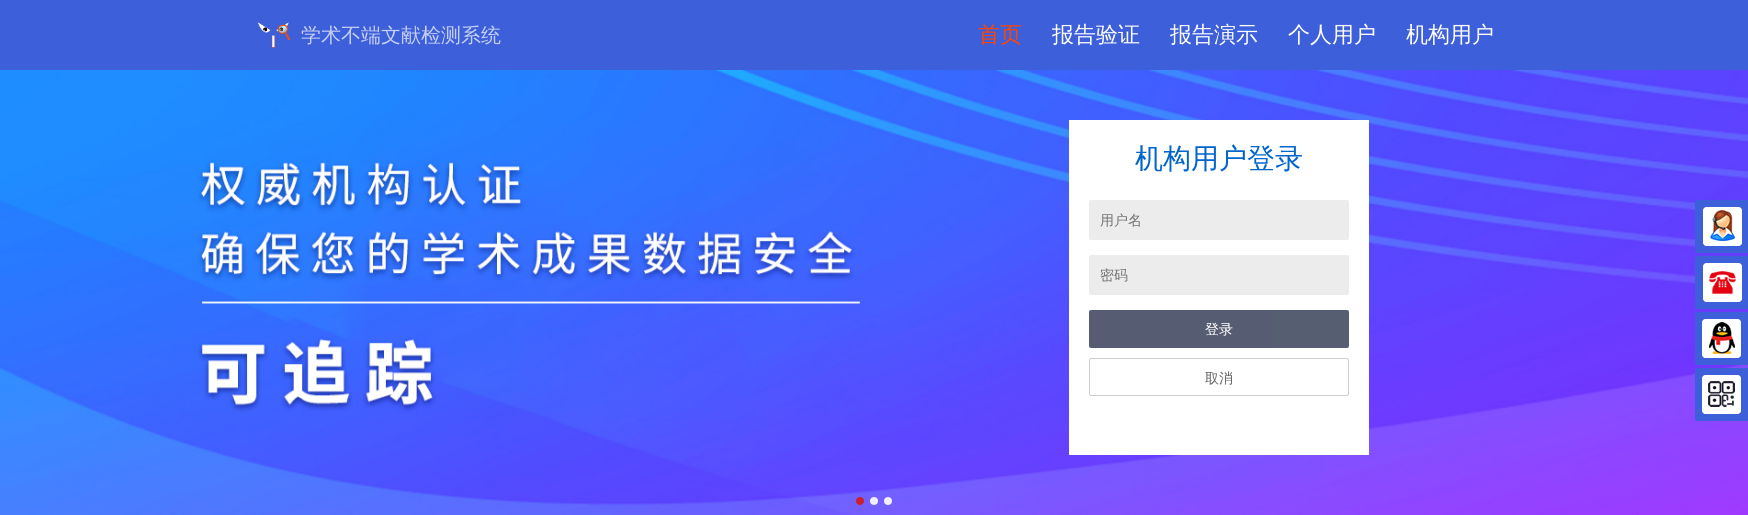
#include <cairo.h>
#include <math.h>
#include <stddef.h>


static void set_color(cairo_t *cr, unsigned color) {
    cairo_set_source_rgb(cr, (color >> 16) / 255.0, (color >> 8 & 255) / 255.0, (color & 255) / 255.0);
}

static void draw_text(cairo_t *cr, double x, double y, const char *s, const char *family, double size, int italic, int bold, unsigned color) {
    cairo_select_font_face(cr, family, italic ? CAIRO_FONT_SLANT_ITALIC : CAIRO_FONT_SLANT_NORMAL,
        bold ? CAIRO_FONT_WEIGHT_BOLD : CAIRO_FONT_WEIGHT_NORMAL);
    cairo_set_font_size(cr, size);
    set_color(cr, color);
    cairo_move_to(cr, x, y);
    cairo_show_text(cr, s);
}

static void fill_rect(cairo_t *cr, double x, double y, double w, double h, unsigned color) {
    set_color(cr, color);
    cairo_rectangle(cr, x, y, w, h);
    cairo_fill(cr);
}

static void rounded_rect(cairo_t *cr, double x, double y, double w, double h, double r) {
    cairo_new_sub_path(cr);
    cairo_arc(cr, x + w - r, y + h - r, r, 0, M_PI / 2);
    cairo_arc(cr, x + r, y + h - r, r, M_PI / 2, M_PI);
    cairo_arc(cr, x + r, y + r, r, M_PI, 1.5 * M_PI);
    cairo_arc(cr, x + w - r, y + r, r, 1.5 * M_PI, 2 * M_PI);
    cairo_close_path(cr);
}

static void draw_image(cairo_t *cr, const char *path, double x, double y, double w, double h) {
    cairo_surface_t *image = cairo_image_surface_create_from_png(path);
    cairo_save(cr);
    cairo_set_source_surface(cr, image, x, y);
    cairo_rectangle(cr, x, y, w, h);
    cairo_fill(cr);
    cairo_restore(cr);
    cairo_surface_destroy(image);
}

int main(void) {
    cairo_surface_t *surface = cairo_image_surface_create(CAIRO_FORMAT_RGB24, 1748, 515);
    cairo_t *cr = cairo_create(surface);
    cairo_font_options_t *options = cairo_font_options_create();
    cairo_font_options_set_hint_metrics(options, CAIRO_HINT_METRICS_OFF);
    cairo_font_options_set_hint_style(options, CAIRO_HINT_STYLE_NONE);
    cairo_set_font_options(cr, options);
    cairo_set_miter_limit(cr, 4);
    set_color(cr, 0xFFFFFF);
    cairo_paint(cr);
    fill_rect(cr, 0, 0, 1748, 70, 0x3D5FDA);
    draw_image(cr, "assets/img1.png", 257, 22, 34, 26);
    draw_text(cr, 301, 42, "学术不端文献检测系统", "WenQuanYi Zen Hei Medium", 20, 0, 0, 0xC5CFF4);
    draw_text(cr, 978, 42, "首页", "WenQuanYi Zen Hei Medium", 22, 0, 0, 0xFF4500);
    draw_text(cr, 1052, 42, "报告验证", "WenQuanYi Zen Hei Medium", 22, 0, 0, 0xFFFFFF);
    draw_text(cr, 1170, 42, "报告演示", "WenQuanYi Zen Hei Medium", 22, 0, 0, 0xFFFFFF);
    draw_text(cr, 1288, 42, "个人用户", "WenQuanYi Zen Hei Medium", 22, 0, 0, 0xFFFFFF);
    draw_text(cr, 1406, 42, "机构用户", "WenQuanYi Zen Hei Medium", 22, 0, 0, 0xFFFFFF);
    draw_image(cr, "assets/img2.png", 0, 70, 1748, 445);
    draw_image(cr, "assets/img3.png", 1069, 120, 300, 335);
    set_color(cr, 0xCC2030);
    cairo_arc(cr, 860, 501, 4, 0, 2 * M_PI);
    cairo_fill(cr);
    set_color(cr, 0xF1EFFF);
    cairo_arc(cr, 874, 501, 4, 0, 2 * M_PI);
    cairo_fill(cr);
    cairo_arc(cr, 888, 501, 4, 0, 2 * M_PI);
    cairo_fill(cr);
    set_color(cr, 0x3D5FDA);
    rounded_rect(cr, 1695, 200, 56, 53, 3);
    cairo_fill(cr);
    draw_image(cr, "assets/img4.png", 1695, 200, 47, 53);
    rounded_rect(cr, 1695, 256, 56, 53, 3);
    cairo_fill(cr);
    draw_image(cr, "assets/img5.png", 1695, 256, 47, 53);
    rounded_rect(cr, 1695, 312, 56, 53, 3);
    cairo_fill(cr);
    draw_image(cr, "assets/img6.png", 1695, 312, 46, 53);
    rounded_rect(cr, 1695, 368, 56, 53, 3);
    cairo_fill(cr);
    draw_image(cr, "assets/img7.png", 1695, 368, 46, 53);
    cairo_surface_write_to_png(surface, "output.png");
    cairo_font_options_destroy(options);
    cairo_destroy(cr);
    cairo_surface_destroy(surface);
    return 0;
}
